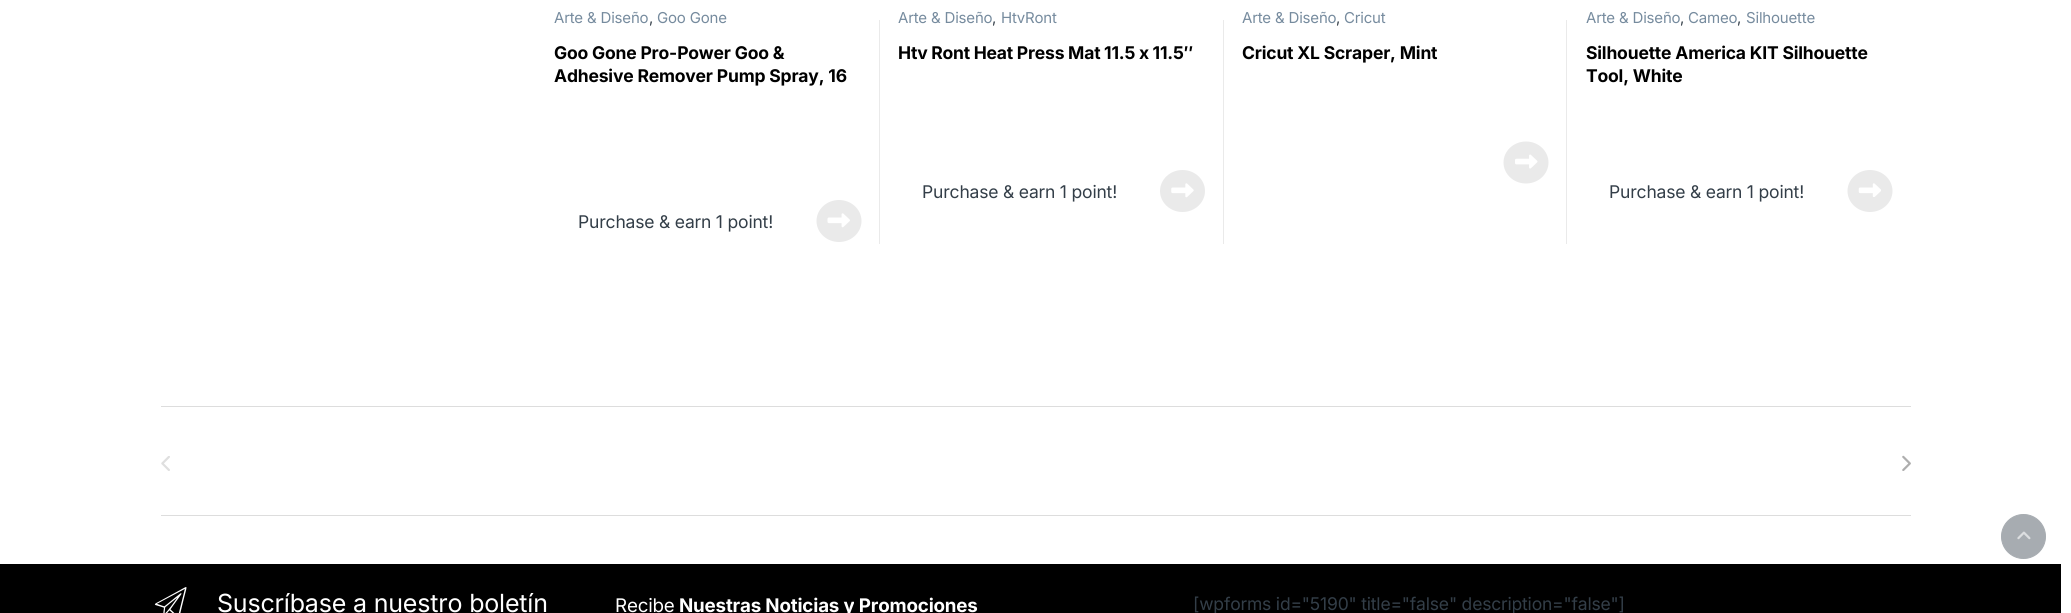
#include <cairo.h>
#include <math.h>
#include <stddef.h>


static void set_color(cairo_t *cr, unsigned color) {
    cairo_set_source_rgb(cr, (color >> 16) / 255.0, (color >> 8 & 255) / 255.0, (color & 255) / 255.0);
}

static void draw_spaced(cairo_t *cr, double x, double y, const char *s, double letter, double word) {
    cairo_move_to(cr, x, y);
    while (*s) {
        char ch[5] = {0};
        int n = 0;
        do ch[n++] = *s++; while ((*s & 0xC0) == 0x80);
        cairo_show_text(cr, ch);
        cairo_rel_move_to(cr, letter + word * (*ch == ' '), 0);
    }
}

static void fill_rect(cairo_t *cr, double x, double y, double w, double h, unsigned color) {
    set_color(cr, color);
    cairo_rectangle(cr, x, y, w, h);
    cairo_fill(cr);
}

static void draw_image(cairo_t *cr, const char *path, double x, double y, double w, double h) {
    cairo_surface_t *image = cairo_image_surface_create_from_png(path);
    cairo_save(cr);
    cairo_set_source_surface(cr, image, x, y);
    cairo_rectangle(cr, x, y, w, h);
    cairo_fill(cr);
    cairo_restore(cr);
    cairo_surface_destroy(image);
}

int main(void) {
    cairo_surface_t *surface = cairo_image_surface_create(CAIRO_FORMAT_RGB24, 2071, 613);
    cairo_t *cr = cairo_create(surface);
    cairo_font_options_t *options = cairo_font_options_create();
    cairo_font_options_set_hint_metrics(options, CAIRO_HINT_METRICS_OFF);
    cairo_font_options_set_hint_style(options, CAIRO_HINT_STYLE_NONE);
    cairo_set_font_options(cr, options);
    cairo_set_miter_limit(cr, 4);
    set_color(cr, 0xFFFFFF);
    cairo_paint(cr);
    cairo_select_font_face(cr, "Inter", CAIRO_FONT_SLANT_NORMAL, CAIRO_FONT_WEIGHT_NORMAL);
    cairo_set_font_size(cr, 15);
    set_color(cr, 0x768B9E);
    draw_spaced(cr, 554, 23, "Arte & Diseño", -0.18, 0);
    set_color(cr, 0x333E48);
    draw_spaced(cr, 649, 23, ",", -0.18, 0);
    set_color(cr, 0x768B9E);
    draw_spaced(cr, 657, 23, "Goo Gone", -0.18, 0);
    cairo_select_font_face(cr, "Inter", CAIRO_FONT_SLANT_NORMAL, CAIRO_FONT_WEIGHT_BOLD);
    cairo_set_font_size(cr, 17.5);
    set_color(cr, 0x000000);
    draw_spaced(cr, 554, 59, "Goo Gone Pro-Power Goo &", -0.18, 0);
    draw_spaced(cr, 554, 82, "Adhesive Remover Pump Spray, 16", -0.18, 0);
    cairo_select_font_face(cr, "Inter", CAIRO_FONT_SLANT_NORMAL, CAIRO_FONT_WEIGHT_NORMAL);
    set_color(cr, 0x333E48);
    draw_spaced(cr, 578, 228, "Purchase & earn 1 point!", -0.18, 0);
    set_color(cr, 0xEAEAEA);
    cairo_new_path(cr);
    cairo_move_to(cr, 839, 200);
    cairo_curve_to(cr, 851.5, 200, 861.5, 209.5, 861.5, 221);
    cairo_curve_to(cr, 861.5, 232.5, 851.5, 242, 839, 242);
    cairo_curve_to(cr, 826.5, 242, 816.5, 232.5, 816.5, 221);
    cairo_curve_to(cr, 816.5, 209.5, 826.5, 200, 839, 200);
    cairo_close_path(cr);
    cairo_fill(cr);
    draw_image(cr, "assets/img1.png", 827, 213, 23, 15);
    fill_rect(cr, 879, 20, 1, 224, 0xEAEAEA);
    cairo_set_font_size(cr, 15);
    set_color(cr, 0x768B9E);
    draw_spaced(cr, 898, 23, "Arte & Diseño", -0.18, 0);
    set_color(cr, 0x333E48);
    draw_spaced(cr, 992, 23, ",", -0.18, 0);
    set_color(cr, 0x768B9E);
    draw_spaced(cr, 1001, 23, "HtvRont", -0.18, 0);
    cairo_select_font_face(cr, "Inter", CAIRO_FONT_SLANT_NORMAL, CAIRO_FONT_WEIGHT_BOLD);
    cairo_set_font_size(cr, 17.5);
    set_color(cr, 0x000000);
    draw_spaced(cr, 898, 59, "Htv Ront Heat Press Mat 11.5 x 11.5″", -0.18, -0.25);
    cairo_select_font_face(cr, "Inter", CAIRO_FONT_SLANT_NORMAL, CAIRO_FONT_WEIGHT_NORMAL);
    set_color(cr, 0x333E48);
    draw_spaced(cr, 922, 198, "Purchase & earn 1 point!", -0.18, 0);
    set_color(cr, 0xEAEAEA);
    cairo_new_path(cr);
    cairo_move_to(cr, 1182.5, 170);
    cairo_curve_to(cr, 1195, 170, 1205, 179.5, 1205, 191);
    cairo_curve_to(cr, 1205, 202.5, 1195, 212, 1182.5, 212);
    cairo_curve_to(cr, 1170, 212, 1160, 202.5, 1160, 191);
    cairo_curve_to(cr, 1160, 179.5, 1170, 170, 1182.5, 170);
    cairo_close_path(cr);
    cairo_fill(cr);
    draw_image(cr, "assets/img2.png", 1171, 183, 23, 15);
    fill_rect(cr, 1223, 20, 1, 224, 0xEAEAEA);
    cairo_set_font_size(cr, 15);
    set_color(cr, 0x768B9E);
    draw_spaced(cr, 1242, 23, "Arte & Diseño", -0.18, 0);
    set_color(cr, 0x333E48);
    draw_spaced(cr, 1336, 23, ",", -0.18, 0);
    set_color(cr, 0x768B9E);
    draw_spaced(cr, 1344, 23, "Cricut", -0.18, 0);
    cairo_select_font_face(cr, "Inter", CAIRO_FONT_SLANT_NORMAL, CAIRO_FONT_WEIGHT_BOLD);
    cairo_set_font_size(cr, 17.5);
    set_color(cr, 0x000000);
    draw_spaced(cr, 1242, 59, "Cricut XL Scraper, Mint", -0.18, 0);
    set_color(cr, 0xEAEAEA);
    cairo_new_path(cr);
    cairo_move_to(cr, 1526, 141.5);
    cairo_curve_to(cr, 1538.5, 141.5, 1548.5, 151, 1548.5, 162.5);
    cairo_curve_to(cr, 1548.5, 174, 1538.5, 183.5, 1526, 183.5);
    cairo_curve_to(cr, 1513.5, 183.5, 1503.5, 174, 1503.5, 162.5);
    cairo_curve_to(cr, 1503.5, 151, 1513.5, 141.5, 1526, 141.5);
    cairo_close_path(cr);
    cairo_fill(cr);
    draw_image(cr, "assets/img3.png", 1515, 154, 23, 15);
    fill_rect(cr, 1566, 20, 1, 224, 0xEAEAEA);
    cairo_select_font_face(cr, "Inter", CAIRO_FONT_SLANT_NORMAL, CAIRO_FONT_WEIGHT_NORMAL);
    cairo_set_font_size(cr, 15);
    set_color(cr, 0x768B9E);
    draw_spaced(cr, 1586, 23, "Arte & Diseño", -0.18, 0);
    set_color(cr, 0x333E48);
    draw_spaced(cr, 1680, 23, ",", -0.18, 0);
    set_color(cr, 0x768B9E);
    draw_spaced(cr, 1688, 23, "Cameo", -0.18, 0);
    set_color(cr, 0x333E48);
    draw_spaced(cr, 1737, 23, ",", -0.18, 0);
    set_color(cr, 0x768B9E);
    draw_spaced(cr, 1746, 23, "Silhouette", -0.18, 0);
    cairo_select_font_face(cr, "Inter", CAIRO_FONT_SLANT_NORMAL, CAIRO_FONT_WEIGHT_BOLD);
    cairo_set_font_size(cr, 17.5);
    set_color(cr, 0x000000);
    draw_spaced(cr, 1586, 59, "Silhouette America KIT Silhouette", -0.18, 0);
    draw_spaced(cr, 1586, 82, "Tool, White", -0.18, 0);
    cairo_select_font_face(cr, "Inter", CAIRO_FONT_SLANT_NORMAL, CAIRO_FONT_WEIGHT_NORMAL);
    set_color(cr, 0x333E48);
    draw_spaced(cr, 1609, 198, "Purchase & earn 1 point!", -0.18, 0);
    set_color(cr, 0xEAEAEA);
    cairo_new_path(cr);
    cairo_move_to(cr, 1870, 170);
    cairo_curve_to(cr, 1882.5, 170, 1892.5, 179.5, 1892.5, 191);
    cairo_curve_to(cr, 1892.5, 202.5, 1882.5, 212, 1870, 212);
    cairo_curve_to(cr, 1857.5, 212, 1847.5, 202.5, 1847.5, 191);
    cairo_curve_to(cr, 1847.5, 179.5, 1857.5, 170, 1870, 170);
    cairo_close_path(cr);
    cairo_fill(cr);
    draw_image(cr, "assets/img4.png", 1858, 183, 23, 14);
    fill_rect(cr, 161, 406, 1750, 1, 0xDDDDDD);
    fill_rect(cr, 161, 515, 1750, 1, 0xDDDDDD);
    draw_image(cr, "assets/img5.png", 161, 456, 9, 15);
    draw_image(cr, "assets/img6.png", 1902, 455, 9, 16);
    fill_rect(cr, 0, 564, 2061, 49, 0x000000);
    draw_image(cr, "assets/img7.png", 154, 587, 33, 26);
    cairo_set_font_size(cr, 25);
    set_color(cr, 0xFFFFFF);
    draw_spaced(cr, 217, 612, "Suscríbase a nuestro boletín", -0.18, 0);
    cairo_set_font_size(cr, 18.75);
    draw_spaced(cr, 615, 612, "Recibe", -0.18, 0);
    cairo_select_font_face(cr, "Inter", CAIRO_FONT_SLANT_NORMAL, CAIRO_FONT_WEIGHT_BOLD);
    draw_spaced(cr, 679, 612, "Nuestras Noticias y Promociones", -0.18, 0);
    cairo_select_font_face(cr, "Inter", CAIRO_FONT_SLANT_NORMAL, CAIRO_FONT_WEIGHT_NORMAL);
    cairo_set_font_size(cr, 17.5);
    set_color(cr, 0x333E48);
    draw_spaced(cr, 1193, 610, "[wpforms id=\"5190\" title=\"false\" description=\"false\"]", -0.18, 0);
    set_color(cr, 0xA7ACB1);
    cairo_new_path(cr);
    cairo_arc(cr, 2023.5, 536.5, 22, 0, 2 * M_PI);
    cairo_fill_preserve(cr);
    cairo_set_line_width(cr, 1);
    cairo_stroke(cr);
    draw_image(cr, "assets/img8.png", 2017, 531, 14, 9);
    cairo_surface_write_to_png(surface, "output.png");
    cairo_font_options_destroy(options);
    cairo_destroy(cr);
    cairo_surface_destroy(surface);
    return 0;
}
